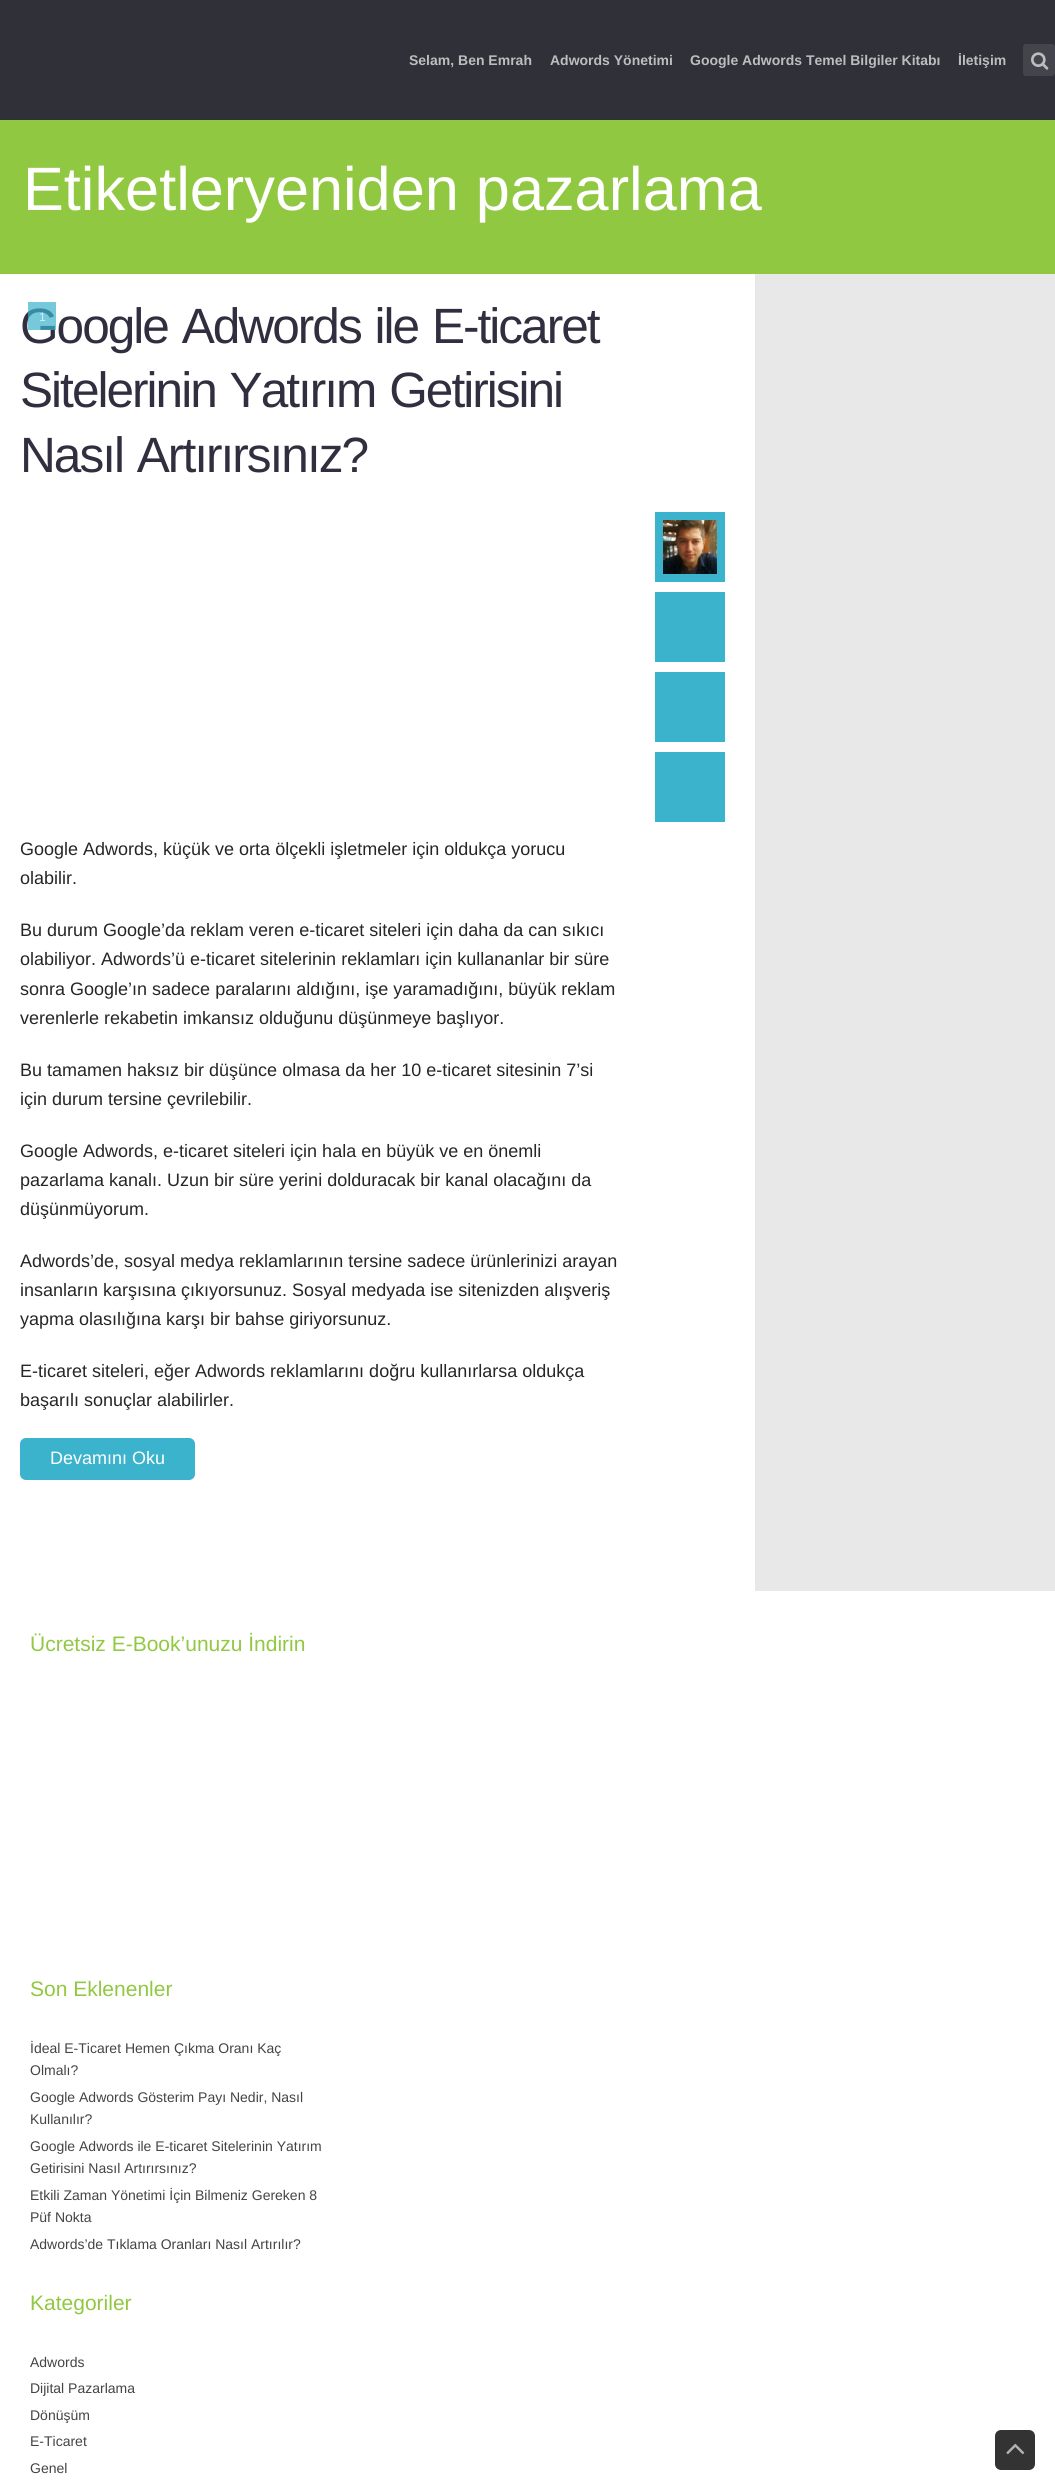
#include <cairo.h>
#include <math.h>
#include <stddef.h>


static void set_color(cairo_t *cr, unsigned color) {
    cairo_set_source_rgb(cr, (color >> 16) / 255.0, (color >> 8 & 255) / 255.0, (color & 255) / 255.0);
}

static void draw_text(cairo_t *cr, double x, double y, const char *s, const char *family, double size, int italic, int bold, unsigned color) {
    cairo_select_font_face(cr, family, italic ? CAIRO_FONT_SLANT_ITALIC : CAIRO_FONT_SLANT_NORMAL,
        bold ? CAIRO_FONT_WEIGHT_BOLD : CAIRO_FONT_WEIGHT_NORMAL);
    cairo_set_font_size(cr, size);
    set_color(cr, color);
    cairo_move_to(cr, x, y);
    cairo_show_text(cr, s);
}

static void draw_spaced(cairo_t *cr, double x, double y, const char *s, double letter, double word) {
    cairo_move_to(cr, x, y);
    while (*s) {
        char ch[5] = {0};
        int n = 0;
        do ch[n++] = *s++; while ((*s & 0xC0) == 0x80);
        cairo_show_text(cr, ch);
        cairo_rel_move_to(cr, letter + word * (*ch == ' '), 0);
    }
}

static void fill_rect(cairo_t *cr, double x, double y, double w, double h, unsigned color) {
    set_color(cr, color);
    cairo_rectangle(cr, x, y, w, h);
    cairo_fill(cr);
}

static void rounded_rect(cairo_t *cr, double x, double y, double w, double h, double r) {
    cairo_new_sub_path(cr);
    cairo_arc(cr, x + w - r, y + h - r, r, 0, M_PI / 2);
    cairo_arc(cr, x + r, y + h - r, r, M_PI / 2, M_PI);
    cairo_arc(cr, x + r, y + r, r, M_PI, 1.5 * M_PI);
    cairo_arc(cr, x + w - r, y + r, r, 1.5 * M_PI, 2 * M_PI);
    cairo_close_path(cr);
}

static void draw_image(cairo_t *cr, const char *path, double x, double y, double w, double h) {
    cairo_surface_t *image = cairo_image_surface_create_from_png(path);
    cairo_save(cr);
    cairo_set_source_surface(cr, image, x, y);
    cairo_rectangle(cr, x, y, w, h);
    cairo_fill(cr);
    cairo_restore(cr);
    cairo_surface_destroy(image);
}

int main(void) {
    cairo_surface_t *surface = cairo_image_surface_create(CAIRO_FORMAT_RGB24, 1055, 2490);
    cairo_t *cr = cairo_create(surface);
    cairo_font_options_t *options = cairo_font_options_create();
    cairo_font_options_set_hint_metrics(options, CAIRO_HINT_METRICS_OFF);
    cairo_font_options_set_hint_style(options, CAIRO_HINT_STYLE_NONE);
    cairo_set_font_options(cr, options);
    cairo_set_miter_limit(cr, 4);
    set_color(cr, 0xFFFFFF);
    cairo_paint(cr);
    fill_rect(cr, 0, 0, 1055, 120, 0x2F3038);
    draw_text(cr, 409, 65, "Selam, Ben Emrah", "Liberation Sans", 14, 0, 1, 0xBDBDBD);
    draw_text(cr, 550, 65, "Adwords Yönetimi", "Liberation Sans", 14, 0, 1, 0xBDBDBD);
    draw_text(cr, 690, 65, "Google Adwords Temel Bilgiler Kitabı", "Liberation Sans", 14, 0, 1, 0xBDBDBD);
    draw_text(cr, 958, 65, "İletişim", "Liberation Sans", 14, 0, 1, 0xBDBDBD);
    set_color(cr, 0x44454C);
    rounded_rect(cr, 1023, 44, 32, 32, 3);
    cairo_fill(cr);
    draw_image(cr, "assets/img1.png", 1031, 52, 18, 18);
    fill_rect(cr, 0, 120, 1055, 154, 0x91C842);
    draw_text(cr, 23, 210, "Etiketleryeniden pazarlama", "Liberation Sans", 61.25, 0, 0, 0xFFFFFF);
    fill_rect(cr, 755, 274, 300, 1317, 0xE8E8E8);
    cairo_set_font_size(cr, 49.6);
    set_color(cr, 0x312F3F);
    draw_spaced(cr, 20, 343, "Google Adwords ile E-ticaret", -2, 2);
    draw_spaced(cr, 20, 407, "Sitelerinin Yatırım Getirisini", -2, 2);
    draw_spaced(cr, 20, 472, "Nasıl Artırırsınız?", -2, 2);
    fill_rect(cr, 655, 512, 70, 70, 0x3BB3CC);
    draw_image(cr, "assets/img2.png", 663, 520, 54, 54);
    fill_rect(cr, 655, 592, 70, 70, 0x3BB3CC);
    fill_rect(cr, 655, 672, 70, 70, 0x3BB3CC);
    fill_rect(cr, 655, 752, 70, 70, 0x3BB3CC);
    draw_text(cr, 20, 855, "Google Adwords, küçük ve orta ölçekli işletmeler için oldukça yorucu", "Liberation Sans", 18, 0, 0, 0x282525);
    draw_text(cr, 20, 884, "olabilir.", "Liberation Sans", 18, 0, 0, 0x282525);
    draw_text(cr, 20, 936, "Bu durum Google’da reklam veren e-ticaret siteleri için daha da can sıkıcı", "Liberation Sans", 18, 0, 0, 0x282525);
    draw_text(cr, 20, 965, "olabiliyor. Adwords’ü e-ticaret sitelerinin reklamları için kullananlar bir süre", "Liberation Sans", 18, 0, 0, 0x282525);
    draw_text(cr, 20, 995, "sonra Google’ın sadece paralarını aldığını, işe yaramadığını, büyük reklam", "Liberation Sans", 18, 0, 0, 0x282525);
    draw_text(cr, 20, 1024, "verenlerle rekabetin imkansız olduğunu düşünmeye başlıyor.", "Liberation Sans", 18, 0, 0, 0x282525);
    draw_text(cr, 20, 1076, "Bu tamamen haksız bir düşünce olmasa da her 10 e-ticaret sitesinin 7’si", "Liberation Sans", 18, 0, 0, 0x282525);
    draw_text(cr, 20, 1105, "için durum tersine çevrilebilir.", "Liberation Sans", 18, 0, 0, 0x282525);
    draw_text(cr, 20, 1157, "Google Adwords, e-ticaret siteleri için hala en büyük ve en önemli", "Liberation Sans", 18, 0, 0, 0x282525);
    draw_text(cr, 20, 1186, "pazarlama kanalı. Uzun bir süre yerini dolduracak bir kanal olacağını da", "Liberation Sans", 18, 0, 0, 0x282525);
    draw_text(cr, 20, 1215, "düşünmüyorum.", "Liberation Sans", 18, 0, 0, 0x282525);
    draw_text(cr, 20, 1267, "Adwords’de, sosyal medya reklamlarının tersine sadece ürünlerinizi arayan", "Liberation Sans", 18, 0, 0, 0x282525);
    draw_text(cr, 20, 1296, "insanların karşısına çıkıyorsunuz. Sosyal medyada ise sitenizden alışveriş", "Liberation Sans", 18, 0, 0, 0x282525);
    draw_text(cr, 20, 1325, "yapma olasılığına karşı bir bahse giriyorsunuz.", "Liberation Sans", 18, 0, 0, 0x282525);
    draw_text(cr, 20, 1377, "E-ticaret siteleri, eğer Adwords reklamlarını doğru kullanırlarsa oldukça", "Liberation Sans", 18, 0, 0, 0x282525);
    draw_text(cr, 20, 1406, "başarılı sonuçlar alabilirler.", "Liberation Sans", 18, 0, 0, 0x282525);
    set_color(cr, 0x3BB3CC);
    rounded_rect(cr, 20, 1438, 175, 42, 6);
    cairo_fill(cr);
    draw_text(cr, 50, 1464, "Devamını Oku", "Liberation Sans", 18, 0, 0, 0xFFFFFF);
    draw_text(cr, 30, 1651, "Ücretsiz E-Book’unuzu İndirin", "Liberation Sans", 21, 0, 0, 0x91C842);
    draw_text(cr, 30, 1996, "Son Eklenenler", "Liberation Sans", 21, 0, 0, 0x91C842);
    draw_text(cr, 30, 2053, "İdeal E-Ticaret Hemen Çıkma Oranı Kaç", "Liberation Sans", 14, 0, 0, 0x454343);
    draw_text(cr, 30, 2075, "Olmalı?", "Liberation Sans", 14, 0, 0, 0x454343);
    draw_text(cr, 30, 2102, "Google Adwords Gösterim Payı Nedir, Nasıl", "Liberation Sans", 14, 0, 0, 0x454343);
    draw_text(cr, 30, 2124, "Kullanılır?", "Liberation Sans", 14, 0, 0, 0x454343);
    draw_text(cr, 30, 2151, "Google Adwords ile E-ticaret Sitelerinin Yatırım", "Liberation Sans", 14, 0, 0, 0x454343);
    draw_text(cr, 30, 2173, "Getirisini Nasıl Artırırsınız?", "Liberation Sans", 14, 0, 0, 0x454343);
    draw_text(cr, 30, 2200, "Etkili Zaman Yönetimi İçin Bilmeniz Gereken 8", "Liberation Sans", 14, 0, 0, 0x454343);
    draw_text(cr, 30, 2222, "Püf Nokta", "Liberation Sans", 14, 0, 0, 0x454343);
    draw_text(cr, 30, 2249, "Adwords’de Tıklama Oranları Nasıl Artırılır?", "Liberation Sans", 14, 0, 0, 0x454343);
    draw_text(cr, 30, 2310, "Kategoriler", "Liberation Sans", 21, 0, 0, 0x91C842);
    draw_text(cr, 30, 2367, "Adwords", "Liberation Sans", 14, 0, 0, 0x454343);
    draw_text(cr, 30, 2393, "Dijital Pazarlama", "Liberation Sans", 14, 0, 0, 0x454343);
    draw_text(cr, 30, 2420, "Dönüşüm", "Liberation Sans", 14, 0, 0, 0x454343);
    draw_text(cr, 30, 2446, "E-Ticaret", "Liberation Sans", 14, 0, 0, 0x454343);
    draw_text(cr, 30, 2473, "Genel", "Liberation Sans", 14, 0, 0, 0x454343);
    cairo_set_source_rgba(cr, 0.231, 0.702, 0.8, 0.7);
    cairo_rectangle(cr, 28, 302, 28, 28);
    cairo_fill(cr);
    draw_text(cr, 39, 321, "1", "Liberation Sans", 12, 0, 0, 0xD5EEF4);
    set_color(cr, 0x333333);
    rounded_rect(cr, 995, 2430, 40, 40, 6);
    cairo_fill(cr);
    draw_image(cr, "assets/img3.png", 1006, 2443, 19, 12);
    cairo_surface_write_to_png(surface, "output.png");
    cairo_font_options_destroy(options);
    cairo_destroy(cr);
    cairo_surface_destroy(surface);
    return 0;
}
